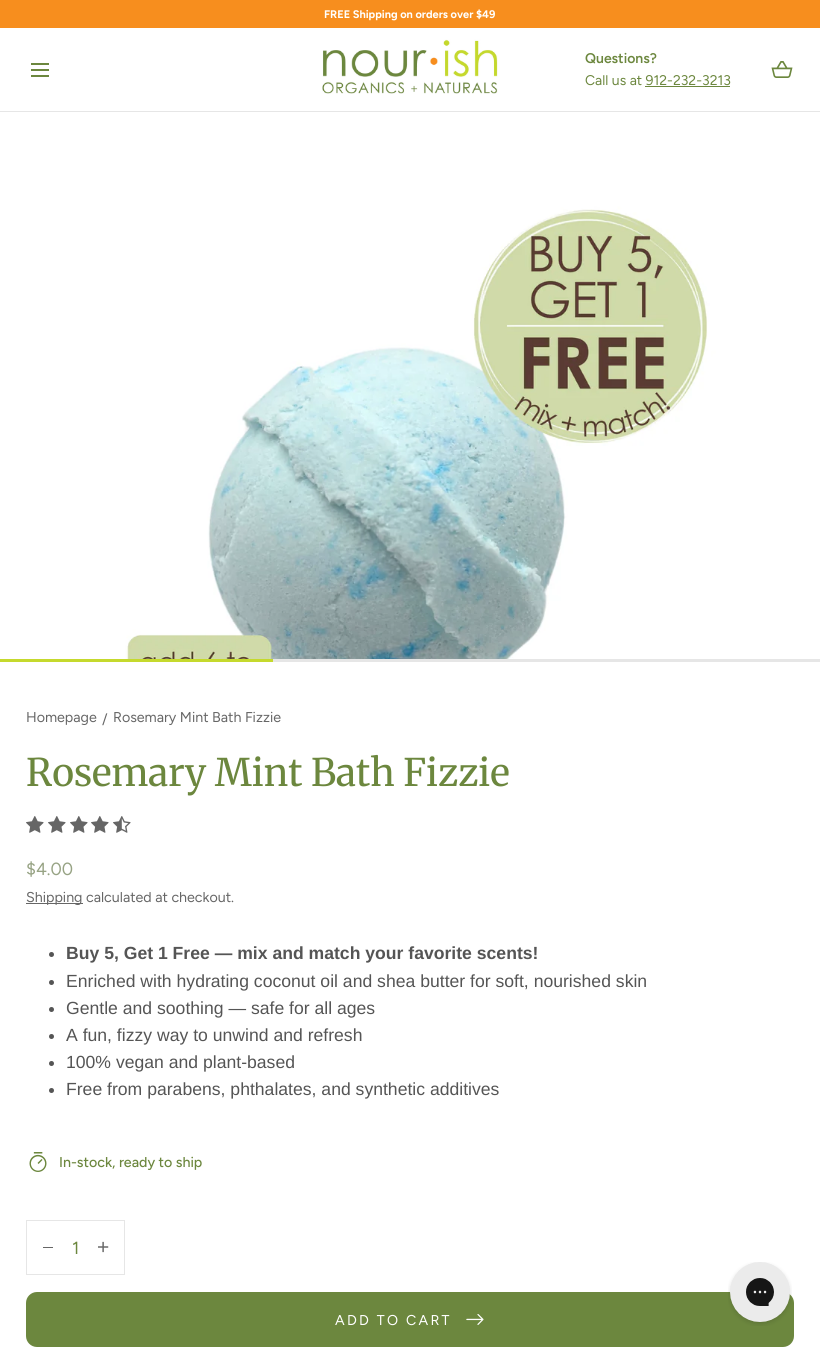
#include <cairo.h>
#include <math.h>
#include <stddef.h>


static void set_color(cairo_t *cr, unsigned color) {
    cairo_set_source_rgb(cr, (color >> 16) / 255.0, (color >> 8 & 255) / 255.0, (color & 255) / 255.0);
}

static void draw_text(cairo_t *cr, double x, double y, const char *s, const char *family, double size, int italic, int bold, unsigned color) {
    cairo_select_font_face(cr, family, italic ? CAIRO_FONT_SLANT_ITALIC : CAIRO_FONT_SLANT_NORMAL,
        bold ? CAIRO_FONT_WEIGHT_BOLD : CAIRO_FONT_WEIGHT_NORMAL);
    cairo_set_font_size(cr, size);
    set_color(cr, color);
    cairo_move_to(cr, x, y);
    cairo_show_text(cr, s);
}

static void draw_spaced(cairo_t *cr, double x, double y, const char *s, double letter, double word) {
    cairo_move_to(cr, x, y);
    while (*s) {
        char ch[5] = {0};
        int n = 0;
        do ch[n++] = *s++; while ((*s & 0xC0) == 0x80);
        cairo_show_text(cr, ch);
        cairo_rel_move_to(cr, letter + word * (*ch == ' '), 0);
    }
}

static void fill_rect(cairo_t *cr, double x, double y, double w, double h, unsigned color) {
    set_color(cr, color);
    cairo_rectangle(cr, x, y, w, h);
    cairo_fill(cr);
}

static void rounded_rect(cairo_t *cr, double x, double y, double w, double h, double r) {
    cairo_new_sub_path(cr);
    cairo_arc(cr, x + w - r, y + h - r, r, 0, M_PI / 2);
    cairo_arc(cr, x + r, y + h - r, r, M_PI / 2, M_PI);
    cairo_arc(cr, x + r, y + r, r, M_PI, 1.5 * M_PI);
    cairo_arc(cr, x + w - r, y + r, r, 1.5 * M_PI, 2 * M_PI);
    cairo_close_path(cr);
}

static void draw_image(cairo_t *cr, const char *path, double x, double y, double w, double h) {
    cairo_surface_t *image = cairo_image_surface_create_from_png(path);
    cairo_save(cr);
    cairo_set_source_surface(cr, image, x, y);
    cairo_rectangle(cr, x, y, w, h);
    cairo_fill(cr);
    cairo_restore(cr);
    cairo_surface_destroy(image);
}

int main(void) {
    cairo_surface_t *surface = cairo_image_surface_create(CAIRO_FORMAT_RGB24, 820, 1349);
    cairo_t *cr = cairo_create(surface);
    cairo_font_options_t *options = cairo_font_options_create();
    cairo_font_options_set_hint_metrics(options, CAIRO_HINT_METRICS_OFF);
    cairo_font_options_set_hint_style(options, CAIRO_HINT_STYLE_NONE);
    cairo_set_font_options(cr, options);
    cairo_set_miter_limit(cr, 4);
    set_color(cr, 0xFFFFFF);
    cairo_paint(cr);
    fill_rect(cr, 0, 0, 820, 28, 0xF78E1E);
    draw_text(cr, 324, 18, "FREE Shipping on orders over $49", "Figtree", 11, 0, 1, 0xFFFFFF);
    fill_rect(cr, 0, 111, 820, 1, 0xE6E6E6);
    fill_rect(cr, 31, 75, 18, 2, 0x6C873E);
    fill_rect(cr, 31, 69, 18, 2, 0x6C873E);
    fill_rect(cr, 31, 63, 18, 2, 0x6C873E);
    draw_image(cr, "assets/img1.png", 322, 39, 176, 55);
    draw_text(cr, 585, 63, "Questions?", "Figtree SemiBold", 14, 0, 0, 0x6C873E);
    draw_text(cr, 585, 85, "Call us at 912-232-3213", "Figtree", 14, 0, 0, 0x6C873E);
    fill_rect(cr, 645, 86, 85, 1, 0x6C873E);
    draw_image(cr, "assets/img2.png", 771, 61, 22, 17);
    draw_image(cr, "assets/img3.png", 0, 112, 820, 547);
    fill_rect(cr, 273, 659, 547, 3, 0xE6E6E6);
    fill_rect(cr, 0, 659, 273, 3, 0xC5D92D);
    draw_text(cr, 26, 722, "Homepage", "Figtree", 14.25, 0, 0, 0x666666);
    draw_text(cr, 102, 724, "/", "Figtree", 14.25, 0, 0, 0x666666);
    draw_text(cr, 113, 722, "Rosemary Mint Bath Fizzie", "Figtree", 14.25, 0, 0, 0x666666);
    draw_text(cr, 26, 786, "Rosemary Mint Bath Fizzie", "Merriweather", 38, 0, 0, 0x6C873E);
    draw_image(cr, "assets/img4.png", 26, 816, 18, 17);
    draw_image(cr, "assets/img4.png", 48, 816, 18, 17);
    draw_image(cr, "assets/img4.png", 70, 816, 18, 17);
    draw_image(cr, "assets/img4.png", 91, 816, 18, 17);
    draw_image(cr, "assets/img5.png", 113, 816, 18, 17);
    draw_text(cr, 26, 875, "$4.00", "Figtree", 17.6, 0, 0, 0x97A384);
    fill_rect(cr, 26, 903, 57, 1, 0x666666);
    draw_text(cr, 26, 902, "Shipping calculated at checkout.", "Figtree", 14.25, 0, 0, 0x666666);
    set_color(cr, 0x555555);
    cairo_new_path(cr);
    cairo_arc(cr, 51.5, 954.5, 2.5, 0, 2 * M_PI);
    cairo_fill(cr);
    draw_text(cr, 66, 959, "Buy 5, Get 1 Free — mix and match your favorite scents!", "Liberation Sans", 17.6, 0, 1, 0x555555);
    cairo_new_path(cr);
    cairo_arc(cr, 51.5, 982.5, 2.5, 0, 2 * M_PI);
    cairo_fill(cr);
    draw_text(cr, 66, 987, "Enriched with hydrating coconut oil and shea butter for soft, nourished skin", "Liberation Sans", 17.6, 0, 0, 0x555555);
    cairo_new_path(cr);
    cairo_arc(cr, 51.5, 1009.5, 2.5, 0, 2 * M_PI);
    cairo_fill(cr);
    draw_text(cr, 66, 1014, "Gentle and soothing — safe for all ages", "Liberation Sans", 17.6, 0, 0, 0x555555);
    cairo_new_path(cr);
    cairo_arc(cr, 51.5, 1036.5, 2.5, 0, 2 * M_PI);
    cairo_fill(cr);
    draw_text(cr, 66, 1041, "A fun, fizzy way to unwind and refresh", "Liberation Sans", 17.6, 0, 0, 0x555555);
    cairo_new_path(cr);
    cairo_arc(cr, 51.5, 1063.5, 2.5, 0, 2 * M_PI);
    cairo_fill(cr);
    draw_text(cr, 66, 1068, "100% vegan and plant-based", "Liberation Sans", 17.6, 0, 0, 0x555555);
    cairo_new_path(cr);
    cairo_arc(cr, 51.5, 1090.5, 2.5, 0, 2 * M_PI);
    cairo_fill(cr);
    draw_text(cr, 66, 1095, "Free from parabens, phthalates, and synthetic additives", "Liberation Sans", 17.6, 0, 0, 0x555555);
    draw_image(cr, "assets/img6.png", 29, 1152, 18, 20);
    draw_text(cr, 59, 1167, "In-stock, ready to ship", "Figtree Medium", 14.25, 0, 0, 0x6C873E);
    cairo_rectangle(cr, 26.5, 1220.5, 98, 54);
    set_color(cr, 0xE6E6E6);
    cairo_set_line_width(cr, 1);
    cairo_stroke(cr);
    fill_rect(cr, 43, 1247, 10, 1, 0x666666);
    draw_text(cr, 72, 1254, "1", "Figtree", 17.6, 0, 0, 0x6C873E);
    draw_image(cr, "assets/img7.png", 98, 1241, 11, 12);
    rounded_rect(cr, 26, 1292, 768, 55, 11);
    cairo_fill(cr);
    cairo_set_font_size(cr, 14.25);
    set_color(cr, 0xFFFFFF);
    draw_spaced(cr, 335, 1325, "ADD TO CART", 2.25, 0);
    draw_image(cr, "assets/img8.png", 466, 1314, 18, 11);
    draw_image(cr, "assets/img9.png", 728, 1262, 64, 64);
    cairo_surface_write_to_png(surface, "output.png");
    cairo_font_options_destroy(options);
    cairo_destroy(cr);
    cairo_surface_destroy(surface);
    return 0;
}
